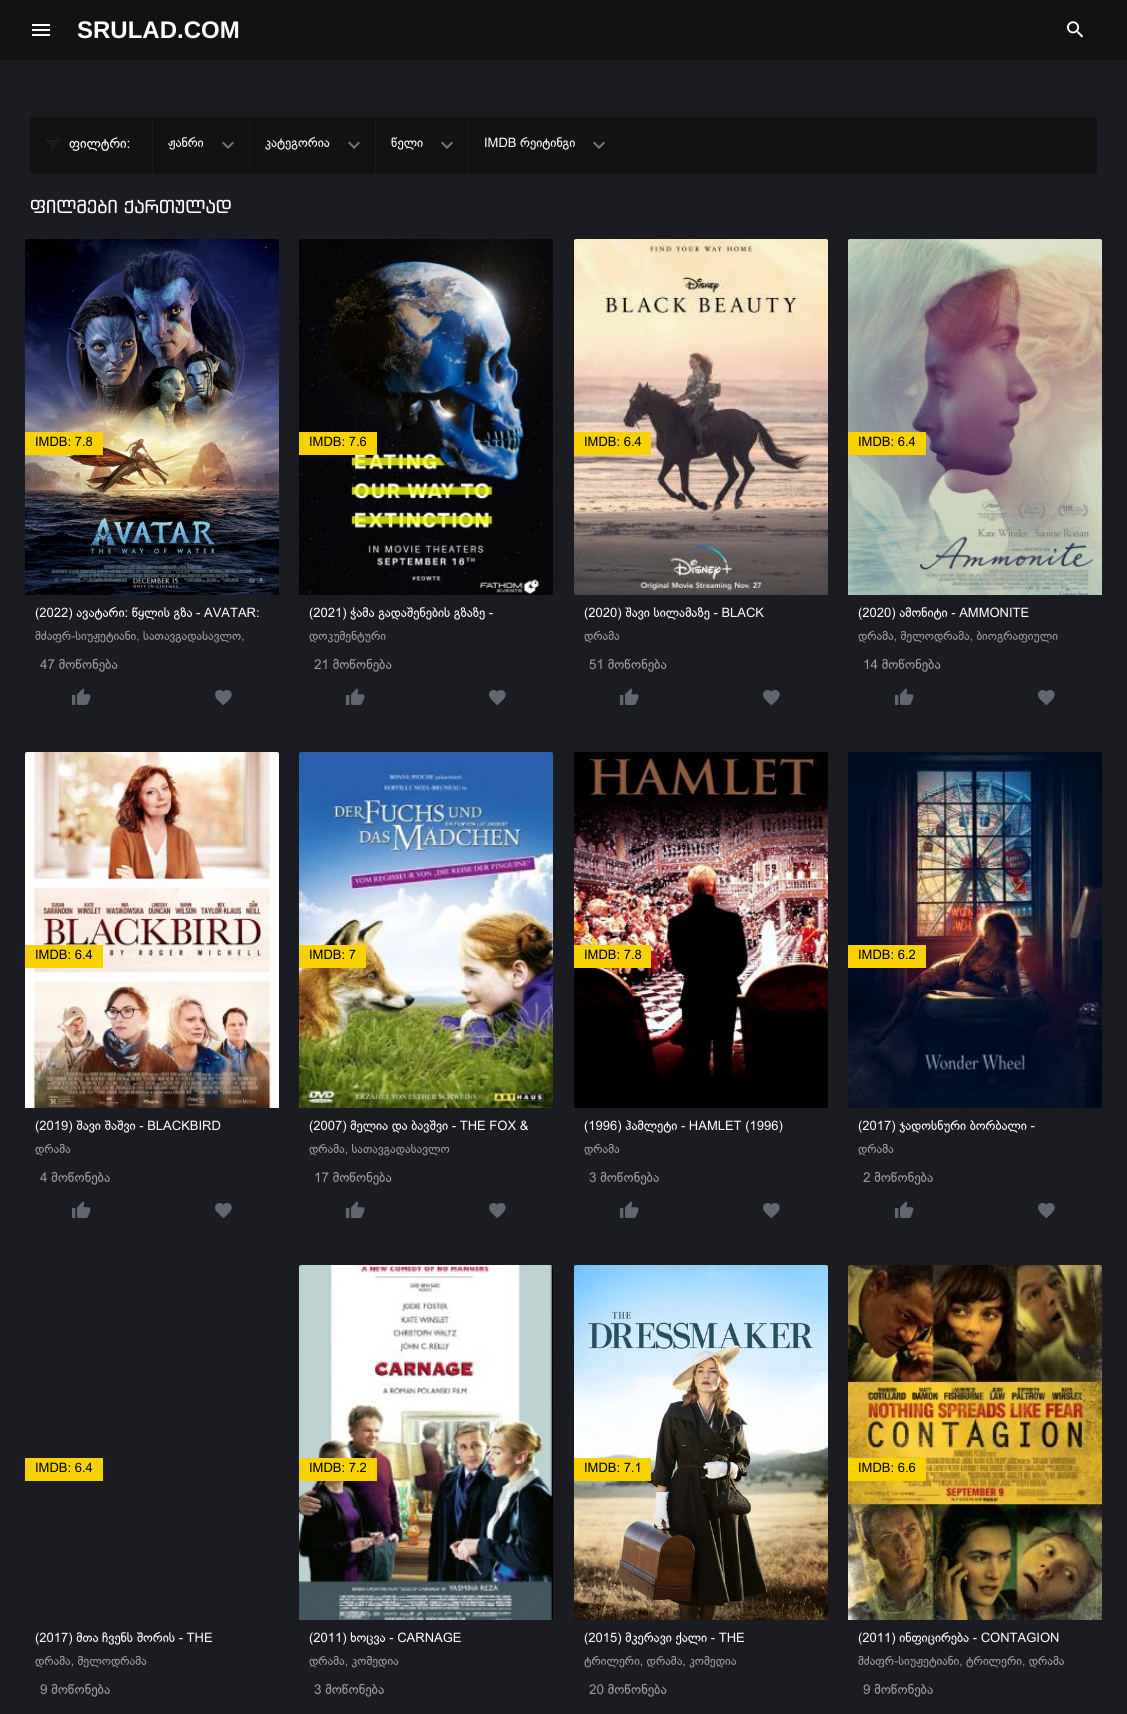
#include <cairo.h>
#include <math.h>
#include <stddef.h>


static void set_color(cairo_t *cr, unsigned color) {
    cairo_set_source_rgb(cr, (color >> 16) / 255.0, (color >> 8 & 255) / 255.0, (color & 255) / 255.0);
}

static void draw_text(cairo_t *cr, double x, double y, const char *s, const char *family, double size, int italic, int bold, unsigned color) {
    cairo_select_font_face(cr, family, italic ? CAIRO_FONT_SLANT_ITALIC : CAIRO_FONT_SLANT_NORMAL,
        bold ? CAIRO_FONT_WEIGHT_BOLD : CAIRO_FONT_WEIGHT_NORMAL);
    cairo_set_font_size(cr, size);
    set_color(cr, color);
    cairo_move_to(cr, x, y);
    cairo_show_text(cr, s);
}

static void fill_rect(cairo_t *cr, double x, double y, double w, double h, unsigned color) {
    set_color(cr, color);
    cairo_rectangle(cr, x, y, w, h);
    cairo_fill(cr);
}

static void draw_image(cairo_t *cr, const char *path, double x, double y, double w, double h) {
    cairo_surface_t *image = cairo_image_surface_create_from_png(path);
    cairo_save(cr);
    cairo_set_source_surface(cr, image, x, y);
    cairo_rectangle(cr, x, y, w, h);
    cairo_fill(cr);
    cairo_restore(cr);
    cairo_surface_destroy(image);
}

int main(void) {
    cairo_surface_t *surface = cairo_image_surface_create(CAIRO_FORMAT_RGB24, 1127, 1714);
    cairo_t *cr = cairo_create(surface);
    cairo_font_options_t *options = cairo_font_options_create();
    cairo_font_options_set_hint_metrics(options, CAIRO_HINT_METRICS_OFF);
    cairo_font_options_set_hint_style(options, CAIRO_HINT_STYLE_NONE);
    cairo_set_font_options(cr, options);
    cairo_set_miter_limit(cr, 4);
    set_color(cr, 0x1A1C21);
    cairo_paint(cr);
    fill_rect(cr, 0, 0, 1127, 60, 0x121212);
    fill_rect(cr, 32, 24, 18, 2, 0xFFFFFF);
    fill_rect(cr, 32, 29, 18, 2, 0xFFFFFF);
    fill_rect(cr, 32, 34, 18, 2, 0xFFFFFF);
    draw_text(cr, 77, 38, "SRULAD.COM", "Liberation Sans", 24, 0, 1, 0xFFFFFF);
    draw_image(cr, "assets/img1.png", 1067, 21, 17, 17);
    fill_rect(cr, 30, 117, 1067, 56, 0x121212);
    draw_image(cr, "assets/img2.png", 45, 137, 16, 14);
    draw_text(cr, 69, 148, "ფილტრი:", "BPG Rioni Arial", 14, 0, 0, 0xFFFFFF);
    fill_rect(cr, 152, 117, 1, 56, 0x1A1C21);
    draw_text(cr, 168, 147, "ჟანრი", "BPG Rioni Arial", 13, 0, 0, 0xFFFFFF);
    draw_image(cr, "assets/img3.png", 222, 141, 12, 8);
    fill_rect(cr, 249, 117, 1, 56, 0x1A1C21);
    draw_text(cr, 265, 147, "კატეგორია", "BPG Rioni Arial", 13, 0, 0, 0xFFFFFF);
    draw_image(cr, "assets/img3.png", 348, 141, 12, 8);
    fill_rect(cr, 375, 117, 1, 56, 0x1A1C21);
    draw_text(cr, 391, 147, "წელი", "BPG Rioni Arial", 13, 0, 0, 0xFFFFFF);
    draw_image(cr, "assets/img3.png", 441, 141, 12, 8);
    fill_rect(cr, 468, 117, 1, 56, 0x1A1C21);
    draw_text(cr, 484, 147, "IMDB რეიტინგი", "BPG Rioni Arial", 13, 0, 0, 0xFFFFFF);
    draw_image(cr, "assets/img3.png", 593, 141, 12, 8);
    draw_text(cr, 30, 213, "ფილმები ქართულად", "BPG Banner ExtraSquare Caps", 18, 0, 0, 0xFFFFFF);
    draw_image(cr, "assets/img4.png", 25, 239, 254, 356);
    fill_rect(cr, 25, 432, 78, 23, 0xF7D100);
    draw_text(cr, 35, 446, "IMDB: 7.8", "BPG Rioni Arial", 13, 0, 0, 0x000000);
    draw_text(cr, 35, 617, "(2022) ავატარი: წყლის გზა - AVATAR:", "BPG Rioni Arial", 13, 0, 0, 0xFFFFFF);
    draw_text(cr, 35, 640, "მძაფრ-სიუჟეტიანი, სათავგადასავლო,", "BPG Rioni Arial", 12.2, 0, 0, 0x9C9C9C);
    draw_text(cr, 40, 669, "47 მოწონება", "BPG Rioni Arial", 13.5, 0, 0, 0x9C9C9C);
    draw_image(cr, "assets/img5.png", 72, 688, 19, 17);
    draw_image(cr, "assets/img6.png", 215, 690, 17, 16);
    draw_image(cr, "assets/img7.png", 299, 239, 254, 356);
    fill_rect(cr, 299, 432, 78, 23, 0xF7D100);
    draw_text(cr, 309, 446, "IMDB: 7.6", "BPG Rioni Arial", 13, 0, 0, 0x000000);
    draw_text(cr, 309, 617, "(2021) ჭამა გადაშენების გზაზე -", "BPG Rioni Arial", 13, 0, 0, 0xFFFFFF);
    draw_text(cr, 309, 640, "დოკუმენტური", "BPG Rioni Arial", 12.2, 0, 0, 0x9C9C9C);
    draw_text(cr, 314, 669, "21 მოწონება", "BPG Rioni Arial", 13.5, 0, 0, 0x9C9C9C);
    draw_image(cr, "assets/img5.png", 346, 688, 19, 17);
    draw_image(cr, "assets/img6.png", 489, 690, 17, 16);
    draw_image(cr, "assets/img8.png", 574, 239, 254, 356);
    fill_rect(cr, 574, 432, 77, 23, 0xF7D100);
    draw_text(cr, 584, 446, "IMDB: 6.4", "BPG Rioni Arial", 13, 0, 0, 0x000000);
    draw_text(cr, 584, 617, "(2020) შავი სილამაზე - BLACK", "BPG Rioni Arial", 13, 0, 0, 0xFFFFFF);
    draw_text(cr, 584, 640, "დრამა", "BPG Rioni Arial", 12.2, 0, 0, 0x9C9C9C);
    draw_text(cr, 589, 669, "51 მოწონება", "BPG Rioni Arial", 13.5, 0, 0, 0x9C9C9C);
    draw_image(cr, "assets/img5.png", 620, 688, 19, 17);
    draw_image(cr, "assets/img6.png", 763, 690, 17, 16);
    draw_image(cr, "assets/img9.png", 848, 239, 254, 356);
    fill_rect(cr, 848, 432, 78, 23, 0xF7D100);
    draw_text(cr, 858, 446, "IMDB: 6.4", "BPG Rioni Arial", 13, 0, 0, 0x000000);
    draw_text(cr, 858, 617, "(2020) ამონიტი - AMMONITE", "BPG Rioni Arial", 13, 0, 0, 0xFFFFFF);
    draw_text(cr, 858, 640, "დრამა, მელოდრამა, ბიოგრაფიული", "BPG Rioni Arial", 12.2, 0, 0, 0x9C9C9C);
    draw_text(cr, 863, 669, "14 მოწონება", "BPG Rioni Arial", 13.5, 0, 0, 0x9C9C9C);
    draw_image(cr, "assets/img5.png", 895, 688, 19, 17);
    draw_image(cr, "assets/img6.png", 1038, 690, 17, 16);
    draw_image(cr, "assets/img10.png", 25, 752, 254, 356);
    fill_rect(cr, 25, 945, 78, 23, 0xF7D100);
    draw_text(cr, 35, 959, "IMDB: 6.4", "BPG Rioni Arial", 13, 0, 0, 0x000000);
    draw_text(cr, 35, 1130, "(2019) შავი შაშვი - BLACKBIRD", "BPG Rioni Arial", 13, 0, 0, 0xFFFFFF);
    draw_text(cr, 35, 1153, "დრამა", "BPG Rioni Arial", 12.2, 0, 0, 0x9C9C9C);
    draw_text(cr, 40, 1182, "4 მოწონება", "BPG Rioni Arial", 13.5, 0, 0, 0x9C9C9C);
    draw_image(cr, "assets/img5.png", 72, 1201, 19, 17);
    draw_image(cr, "assets/img6.png", 215, 1203, 17, 16);
    draw_image(cr, "assets/img11.png", 299, 752, 254, 356);
    fill_rect(cr, 299, 945, 67, 23, 0xF7D100);
    draw_text(cr, 309, 959, "IMDB: 7", "BPG Rioni Arial", 13, 0, 0, 0x000000);
    draw_text(cr, 309, 1130, "(2007) მელია და ბავშვი - THE FOX &", "BPG Rioni Arial", 13, 0, 0, 0xFFFFFF);
    draw_text(cr, 309, 1153, "დრამა, სათავგადასავლო", "BPG Rioni Arial", 12.2, 0, 0, 0x9C9C9C);
    draw_text(cr, 314, 1182, "17 მოწონება", "BPG Rioni Arial", 13.5, 0, 0, 0x9C9C9C);
    draw_image(cr, "assets/img5.png", 346, 1201, 19, 17);
    draw_image(cr, "assets/img6.png", 489, 1203, 17, 16);
    draw_image(cr, "assets/img12.png", 574, 752, 254, 356);
    fill_rect(cr, 574, 945, 77, 23, 0xF7D100);
    draw_text(cr, 584, 959, "IMDB: 7.8", "BPG Rioni Arial", 13, 0, 0, 0x000000);
    draw_text(cr, 584, 1130, "(1996) ჰამლეტი - HAMLET (1996)", "BPG Rioni Arial", 13, 0, 0, 0xFFFFFF);
    draw_text(cr, 584, 1153, "დრამა", "BPG Rioni Arial", 12.2, 0, 0, 0x9C9C9C);
    draw_text(cr, 589, 1182, "3 მოწონება", "BPG Rioni Arial", 13.5, 0, 0, 0x9C9C9C);
    draw_image(cr, "assets/img5.png", 620, 1201, 19, 17);
    draw_image(cr, "assets/img6.png", 763, 1203, 17, 16);
    draw_image(cr, "assets/img13.png", 848, 752, 254, 356);
    fill_rect(cr, 848, 945, 78, 23, 0xF7D100);
    draw_text(cr, 858, 959, "IMDB: 6.2", "BPG Rioni Arial", 13, 0, 0, 0x000000);
    draw_text(cr, 858, 1130, "(2017) ჯადოსნური ბორბალი -", "BPG Rioni Arial", 13, 0, 0, 0xFFFFFF);
    draw_text(cr, 858, 1153, "დრამა", "BPG Rioni Arial", 12.2, 0, 0, 0x9C9C9C);
    draw_text(cr, 863, 1182, "2 მოწონება", "BPG Rioni Arial", 13.5, 0, 0, 0x9C9C9C);
    draw_image(cr, "assets/img5.png", 895, 1201, 19, 17);
    draw_image(cr, "assets/img6.png", 1038, 1203, 17, 16);
    fill_rect(cr, 25, 1458, 78, 23, 0xF7D100);
    draw_text(cr, 35, 1472, "IMDB: 6.4", "BPG Rioni Arial", 13, 0, 0, 0x000000);
    draw_text(cr, 35, 1642, "(2017) მთა ჩვენს შორის - THE", "BPG Rioni Arial", 13, 0, 0, 0xFFFFFF);
    draw_text(cr, 35, 1665, "დრამა, მელოდრამა", "BPG Rioni Arial", 12.2, 0, 0, 0x9C9C9C);
    draw_text(cr, 40, 1694, "9 მოწონება", "BPG Rioni Arial", 13.5, 0, 0, 0x9C9C9C);
    draw_image(cr, "assets/img14.png", 299, 1265, 254, 355);
    fill_rect(cr, 299, 1458, 78, 23, 0xF7D100);
    draw_text(cr, 309, 1472, "IMDB: 7.2", "BPG Rioni Arial", 13, 0, 0, 0x000000);
    draw_text(cr, 309, 1642, "(2011) ხოცვა - CARNAGE", "BPG Rioni Arial", 13, 0, 0, 0xFFFFFF);
    draw_text(cr, 309, 1665, "დრამა, კომედია", "BPG Rioni Arial", 12.2, 0, 0, 0x9C9C9C);
    draw_text(cr, 314, 1694, "3 მოწონება", "BPG Rioni Arial", 13.5, 0, 0, 0x9C9C9C);
    draw_image(cr, "assets/img15.png", 574, 1265, 254, 355);
    fill_rect(cr, 574, 1458, 77, 23, 0xF7D100);
    draw_text(cr, 584, 1472, "IMDB: 7.1", "BPG Rioni Arial", 13, 0, 0, 0x000000);
    draw_text(cr, 584, 1642, "(2015) მკერავი ქალი - THE", "BPG Rioni Arial", 13, 0, 0, 0xFFFFFF);
    draw_text(cr, 584, 1665, "ტრილერი, დრამა, კომედია", "BPG Rioni Arial", 12.2, 0, 0, 0x9C9C9C);
    draw_text(cr, 589, 1694, "20 მოწონება", "BPG Rioni Arial", 13.5, 0, 0, 0x9C9C9C);
    draw_image(cr, "assets/img16.png", 848, 1265, 254, 355);
    fill_rect(cr, 848, 1458, 78, 23, 0xF7D100);
    draw_text(cr, 858, 1472, "IMDB: 6.6", "BPG Rioni Arial", 13, 0, 0, 0x000000);
    draw_text(cr, 858, 1642, "(2011) ინფიცირება - CONTAGION", "BPG Rioni Arial", 13, 0, 0, 0xFFFFFF);
    draw_text(cr, 858, 1665, "მძაფრ-სიუჟეტიანი, ტრილერი, დრამა", "BPG Rioni Arial", 12.2, 0, 0, 0x9C9C9C);
    draw_text(cr, 863, 1694, "9 მოწონება", "BPG Rioni Arial", 13.5, 0, 0, 0x9C9C9C);
    cairo_surface_write_to_png(surface, "output.png");
    cairo_font_options_destroy(options);
    cairo_destroy(cr);
    cairo_surface_destroy(surface);
    return 0;
}
